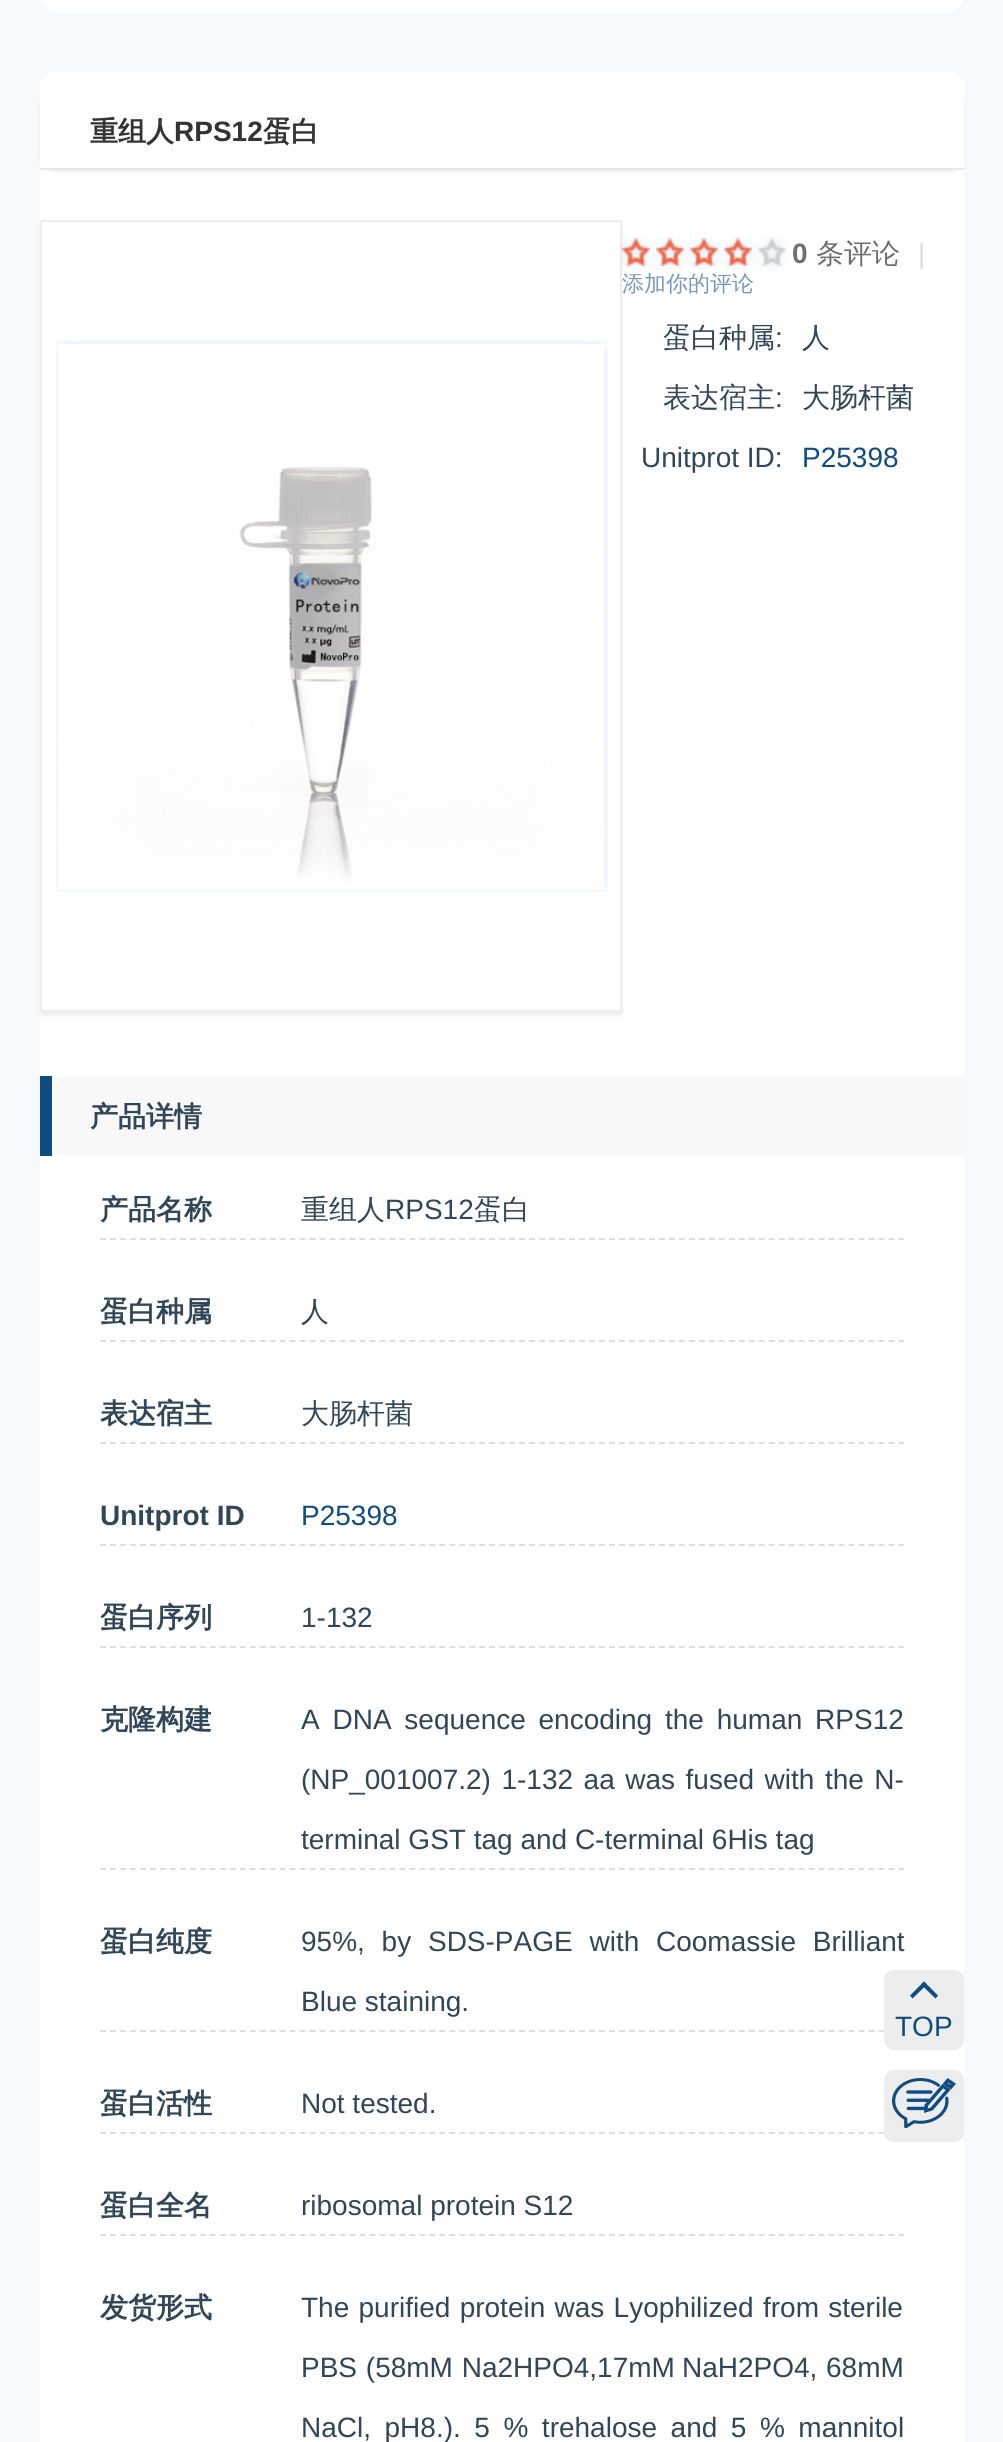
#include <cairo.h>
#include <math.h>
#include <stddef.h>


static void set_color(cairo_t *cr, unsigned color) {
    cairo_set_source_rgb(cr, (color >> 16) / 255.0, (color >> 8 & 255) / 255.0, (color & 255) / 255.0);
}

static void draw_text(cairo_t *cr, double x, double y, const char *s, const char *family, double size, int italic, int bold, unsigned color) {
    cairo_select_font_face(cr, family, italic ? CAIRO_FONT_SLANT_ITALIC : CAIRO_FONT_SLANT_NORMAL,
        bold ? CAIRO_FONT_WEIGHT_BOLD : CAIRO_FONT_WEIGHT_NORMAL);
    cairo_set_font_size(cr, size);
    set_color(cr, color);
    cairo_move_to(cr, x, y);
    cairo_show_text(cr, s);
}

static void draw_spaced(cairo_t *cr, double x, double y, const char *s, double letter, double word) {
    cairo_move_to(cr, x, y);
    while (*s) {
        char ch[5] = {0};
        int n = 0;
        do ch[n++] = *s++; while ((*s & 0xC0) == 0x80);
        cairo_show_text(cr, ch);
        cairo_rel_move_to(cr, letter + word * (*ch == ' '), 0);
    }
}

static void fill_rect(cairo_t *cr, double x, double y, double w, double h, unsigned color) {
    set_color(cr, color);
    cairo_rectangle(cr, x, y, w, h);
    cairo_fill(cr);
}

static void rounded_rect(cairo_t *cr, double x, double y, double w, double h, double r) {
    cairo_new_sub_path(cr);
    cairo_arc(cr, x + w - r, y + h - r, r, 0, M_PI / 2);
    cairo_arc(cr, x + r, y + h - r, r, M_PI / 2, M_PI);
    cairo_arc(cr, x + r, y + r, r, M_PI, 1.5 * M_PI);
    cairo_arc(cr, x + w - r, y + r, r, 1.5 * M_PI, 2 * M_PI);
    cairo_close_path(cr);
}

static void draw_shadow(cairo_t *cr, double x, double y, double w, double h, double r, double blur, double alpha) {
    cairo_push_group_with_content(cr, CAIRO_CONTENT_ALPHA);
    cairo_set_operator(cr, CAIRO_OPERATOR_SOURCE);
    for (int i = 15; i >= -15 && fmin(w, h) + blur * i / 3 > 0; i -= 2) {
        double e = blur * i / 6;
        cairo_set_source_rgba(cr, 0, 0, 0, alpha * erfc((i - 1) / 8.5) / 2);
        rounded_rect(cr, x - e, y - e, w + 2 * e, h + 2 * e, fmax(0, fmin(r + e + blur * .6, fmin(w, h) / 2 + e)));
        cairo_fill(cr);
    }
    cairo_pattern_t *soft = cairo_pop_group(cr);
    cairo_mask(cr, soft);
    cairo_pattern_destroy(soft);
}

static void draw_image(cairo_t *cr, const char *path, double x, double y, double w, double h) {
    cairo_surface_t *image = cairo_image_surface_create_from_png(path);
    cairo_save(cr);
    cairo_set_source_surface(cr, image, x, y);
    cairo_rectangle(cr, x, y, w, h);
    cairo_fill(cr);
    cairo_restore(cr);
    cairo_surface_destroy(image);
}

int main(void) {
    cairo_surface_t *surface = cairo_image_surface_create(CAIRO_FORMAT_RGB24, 1003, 2442);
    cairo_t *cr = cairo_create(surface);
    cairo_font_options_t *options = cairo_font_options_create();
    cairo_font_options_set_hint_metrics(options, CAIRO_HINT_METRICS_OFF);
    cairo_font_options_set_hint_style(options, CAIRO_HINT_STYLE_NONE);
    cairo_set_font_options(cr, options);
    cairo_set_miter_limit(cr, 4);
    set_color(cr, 0xF7FAFC);
    cairo_paint(cr);
    set_color(cr, 0xFFFFFF);
    rounded_rect(cr, 40, -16, 924, 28, 16);
    cairo_fill(cr);
    rounded_rect(cr, 40, 72, 924, 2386, 16);
    cairo_fill(cr);
    set_color(cr, 0x001529);
    draw_shadow(cr, 40, 92, 924, 80, 16, 2, 0.08);
    set_color(cr, 0xFFFFFF);
    cairo_new_path(cr);
    cairo_move_to(cr, 56, 90);
    cairo_line_to(cr, 948, 90);
    cairo_curve_to(cr, 957, 90, 964, 97, 964, 106);
    cairo_line_to(cr, 964, 170);
    cairo_line_to(cr, 40, 170);
    cairo_line_to(cr, 40, 106);
    cairo_curve_to(cr, 40, 97, 47, 90, 56, 90);
    cairo_close_path(cr);
    cairo_fill(cr);
    fill_rect(cr, 40, 168, 924, 2, 0xE5E7EB);
    draw_text(cr, 90, 141, "重组人", "WenQuanYi Zen Hei", 28, 0, 1, 0x333333);
    draw_text(cr, 174, 141, "RPS12", "Liberation Sans", 28, 0, 1, 0x333333);
    draw_text(cr, 263, 141, "蛋白", "WenQuanYi Zen Hei", 28, 0, 1, 0x333333);
    set_color(cr, 0xEDEDED);
    draw_shadow(cr, 40, 224, 582, 792, 2, 2, 1);
    set_color(cr, 0xFFFFFF);
    rounded_rect(cr, 41, 221, 580, 790, 1);
    cairo_fill_preserve(cr);
    set_color(cr, 0xEDEDED);
    cairo_stroke(cr);
    draw_image(cr, "assets/img1.png", 56, 340, 552, 552);
    draw_image(cr, "assets/img2.png", 620, 236, 34, 34);
    draw_image(cr, "assets/img3.png", 654, 236, 34, 34);
    draw_image(cr, "assets/img3.png", 688, 236, 34, 34);
    draw_image(cr, "assets/img3.png", 722, 236, 34, 34);
    draw_image(cr, "assets/img4.png", 756, 236, 33, 34);
    draw_text(cr, 792, 263, "0", "Liberation Sans", 28, 0, 1, 0x707070);
    draw_text(cr, 816, 263, "条评论", "WenQuanYi Zen Hei Medium", 28, 0, 0, 0x707070);
    draw_text(cr, 918, 263, "|", "Liberation Sans", 28, 0, 0, 0xDADADA);
    draw_text(cr, 622, 291, "添加你的评论", "WenQuanYi Zen Hei Medium", 22, 0, 0, 0x7698C1);
    draw_text(cr, 663, 347, "蛋白种属", "WenQuanYi Zen Hei Medium", 28, 0, 0, 0x314659);
    draw_text(cr, 775, 347, ":", "Liberation Sans", 28, 0, 0, 0x314659);
    draw_text(cr, 802, 347, "人", "WenQuanYi Zen Hei Medium", 28, 0, 0, 0x314659);
    draw_text(cr, 663, 407, "表达宿主", "WenQuanYi Zen Hei Medium", 28, 0, 0, 0x314659);
    draw_text(cr, 775, 407, ":", "Liberation Sans", 28, 0, 0, 0x314659);
    draw_text(cr, 802, 407, "大肠杆菌", "WenQuanYi Zen Hei Medium", 28, 0, 0, 0x314659);
    draw_text(cr, 641, 467, "Unitprot ID:", "Liberation Sans", 28, 0, 0, 0x314659);
    draw_text(cr, 802, 467, "P25398", "Liberation Sans", 28, 0, 0, 0x104C82);
    fill_rect(cr, 52, 1076, 912, 80, 0xF8F8F8);
    fill_rect(cr, 40, 1076, 12, 80, 0x104C82);
    draw_text(cr, 90, 1126, "产品详情", "WenQuanYi Zen Hei", 28, 0, 1, 0x314659);
    cairo_new_path(cr);
    cairo_move_to(cr, 100, 1239);
    cairo_line_to(cr, 904, 1239);
    set_color(cr, 0xDEDEDE);
    cairo_set_dash(cr, (double[]){6, 3.98}, 2, 0);
    cairo_stroke(cr);
    draw_text(cr, 100, 1219, "产品名称", "WenQuanYi Zen Hei", 28, 0, 1, 0x314659);
    draw_text(cr, 301, 1219, "重组人", "WenQuanYi Zen Hei Medium", 28, 0, 0, 0x314659);
    draw_text(cr, 385, 1219, "RPS12", "Liberation Sans", 28, 0, 0, 0x314659);
    draw_text(cr, 474, 1219, "蛋白", "WenQuanYi Zen Hei Medium", 28, 0, 0, 0x314659);
    cairo_new_path(cr);
    cairo_move_to(cr, 100, 1341);
    cairo_line_to(cr, 904, 1341);
    set_color(cr, 0xDEDEDE);
    cairo_stroke(cr);
    draw_text(cr, 100, 1321, "蛋白种属", "WenQuanYi Zen Hei", 28, 0, 1, 0x314659);
    draw_text(cr, 301, 1321, "人", "WenQuanYi Zen Hei Medium", 28, 0, 0, 0x314659);
    cairo_new_path(cr);
    cairo_move_to(cr, 100, 1443);
    cairo_line_to(cr, 904, 1443);
    set_color(cr, 0xDEDEDE);
    cairo_stroke(cr);
    draw_text(cr, 100, 1423, "表达宿主", "WenQuanYi Zen Hei", 28, 0, 1, 0x314659);
    draw_text(cr, 301, 1423, "大肠杆菌", "WenQuanYi Zen Hei Medium", 28, 0, 0, 0x314659);
    cairo_new_path(cr);
    cairo_move_to(cr, 100, 1545);
    cairo_line_to(cr, 904, 1545);
    set_color(cr, 0xDEDEDE);
    cairo_stroke(cr);
    draw_text(cr, 100, 1525, "Unitprot ID", "Liberation Sans", 28, 0, 1, 0x314659);
    draw_text(cr, 301, 1525, "P25398", "Liberation Sans", 28, 0, 0, 0x104C82);
    cairo_new_path(cr);
    cairo_move_to(cr, 100, 1647);
    cairo_line_to(cr, 904, 1647);
    set_color(cr, 0xDEDEDE);
    cairo_stroke(cr);
    draw_text(cr, 100, 1627, "蛋白序列", "WenQuanYi Zen Hei", 28, 0, 1, 0x314659);
    draw_text(cr, 301, 1627, "1-132", "Liberation Sans", 28, 0, 0, 0x314659);
    cairo_new_path(cr);
    cairo_move_to(cr, 100, 1869);
    cairo_line_to(cr, 904, 1869);
    set_color(cr, 0xDEDEDE);
    cairo_stroke(cr);
    draw_text(cr, 100, 1729, "克隆构建", "WenQuanYi Zen Hei", 28, 0, 1, 0x314659);
    cairo_select_font_face(cr, "Liberation Sans", CAIRO_FONT_SLANT_NORMAL, CAIRO_FONT_WEIGHT_NORMAL);
    draw_spaced(cr, 301, 1729, "A DNA sequence encoding the human RPS12", 0, 5);
    draw_spaced(cr, 301, 1789, "(NP_001007.2) 1-132 aa was fused with the N-", 0, 2.75);
    draw_text(cr, 301, 1849, "terminal GST tag and C-terminal 6His tag", "Liberation Sans", 28, 0, 0, 0x314659);
    cairo_new_path(cr);
    cairo_move_to(cr, 100, 2031);
    cairo_line_to(cr, 904, 2031);
    set_color(cr, 0xDEDEDE);
    cairo_stroke(cr);
    draw_text(cr, 100, 1951, "蛋白纯度", "WenQuanYi Zen Hei", 28, 0, 1, 0x314659);
    cairo_select_font_face(cr, "Liberation Sans", CAIRO_FONT_SLANT_NORMAL, CAIRO_FONT_WEIGHT_NORMAL);
    draw_spaced(cr, 301, 1951, "95%, by SDS-PAGE with Coomassie Brilliant", 0, 9);
    draw_text(cr, 301, 2011, "Blue staining.", "Liberation Sans", 28, 0, 0, 0x314659);
    cairo_new_path(cr);
    cairo_move_to(cr, 100, 2133);
    cairo_line_to(cr, 904, 2133);
    set_color(cr, 0xDEDEDE);
    cairo_stroke(cr);
    draw_text(cr, 100, 2113, "蛋白活性", "WenQuanYi Zen Hei", 28, 0, 1, 0x314659);
    draw_text(cr, 301, 2113, "Not tested.", "Liberation Sans", 28, 0, 0, 0x314659);
    cairo_new_path(cr);
    cairo_move_to(cr, 100, 2235);
    cairo_line_to(cr, 904, 2235);
    set_color(cr, 0xDEDEDE);
    cairo_stroke(cr);
    draw_text(cr, 100, 2215, "蛋白全名", "WenQuanYi Zen Hei", 28, 0, 1, 0x314659);
    draw_text(cr, 301, 2215, "ribosomal protein S12", "Liberation Sans", 28, 0, 0, 0x314659);
    draw_text(cr, 100, 2317, "发货形式", "WenQuanYi Zen Hei", 28, 0, 1, 0x314659);
    cairo_select_font_face(cr, "Liberation Sans", CAIRO_FONT_SLANT_NORMAL, CAIRO_FONT_WEIGHT_NORMAL);
    draw_spaced(cr, 301, 2317, "The purified protein was Lyophilized from sterile", 0, 1.5);
    draw_spaced(cr, 301, 2377, "PBS (58mM Na2HPO4,17mM", 0, 1);
    draw_text(cr, 682, 2377, "NaH2PO4,", "Liberation Sans", 28, 0, 0, 0x314659);
    draw_text(cr, 826, 2377, "68mM", "Liberation Sans", 28, 0, 0, 0x314659);
    draw_spaced(cr, 301, 2437, "NaCl, pH8.). 5 % trehalose and 5 % mannitol", 0, 5.75);
    set_color(cr, 0xEDEDED);
    rounded_rect(cr, 884, 1970, 80, 80, 10);
    cairo_fill(cr);
    set_color(cr, 0x104C82);
    cairo_new_path(cr);
    cairo_move_to(cr, 910, 1995.5);
    cairo_line_to(cr, 924, 1981.5);
    cairo_line_to(cr, 927, 1984.5);
    cairo_line_to(cr, 912.5, 1998.5);
    cairo_close_path(cr);
    cairo_fill(cr);
    cairo_new_path(cr);
    cairo_move_to(cr, 921, 1984.5);
    cairo_line_to(cr, 924, 1981.5);
    cairo_line_to(cr, 938, 1995.5);
    cairo_line_to(cr, 935.5, 1998.5);
    cairo_close_path(cr);
    cairo_fill(cr);
    draw_text(cr, 895, 2036, "TOP", "Liberation Sans", 28, 0, 0, 0x104C82);
    set_color(cr, 0xEDEDED);
    rounded_rect(cr, 884, 2070, 80, 72, 10);
    cairo_fill(cr);
    draw_image(cr, "assets/img5.png", 892, 2078, 64, 50);
    cairo_surface_write_to_png(surface, "output.png");
    cairo_font_options_destroy(options);
    cairo_destroy(cr);
    cairo_surface_destroy(surface);
    return 0;
}
